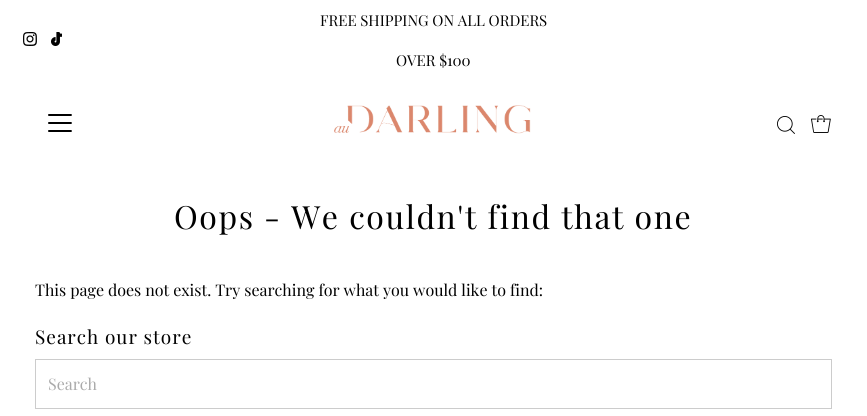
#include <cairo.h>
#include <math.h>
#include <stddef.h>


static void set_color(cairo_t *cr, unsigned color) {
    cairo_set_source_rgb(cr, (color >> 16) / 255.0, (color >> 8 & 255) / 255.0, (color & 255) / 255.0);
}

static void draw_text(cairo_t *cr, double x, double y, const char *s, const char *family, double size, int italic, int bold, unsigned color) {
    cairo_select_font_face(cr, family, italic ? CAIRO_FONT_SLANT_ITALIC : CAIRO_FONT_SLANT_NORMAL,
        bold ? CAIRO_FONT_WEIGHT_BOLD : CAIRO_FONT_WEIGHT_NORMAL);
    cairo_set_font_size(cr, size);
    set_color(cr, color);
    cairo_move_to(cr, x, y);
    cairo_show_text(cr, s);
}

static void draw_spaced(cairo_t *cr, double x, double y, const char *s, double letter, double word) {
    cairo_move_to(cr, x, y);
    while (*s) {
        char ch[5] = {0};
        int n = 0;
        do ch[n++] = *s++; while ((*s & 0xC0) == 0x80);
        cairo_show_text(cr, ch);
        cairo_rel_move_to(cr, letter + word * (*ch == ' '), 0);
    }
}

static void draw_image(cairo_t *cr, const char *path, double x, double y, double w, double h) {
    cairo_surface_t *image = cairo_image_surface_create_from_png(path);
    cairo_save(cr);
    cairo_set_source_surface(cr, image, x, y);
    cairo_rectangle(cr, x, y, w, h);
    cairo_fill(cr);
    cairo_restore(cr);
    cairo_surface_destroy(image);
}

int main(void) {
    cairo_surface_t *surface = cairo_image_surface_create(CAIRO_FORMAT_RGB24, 867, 416);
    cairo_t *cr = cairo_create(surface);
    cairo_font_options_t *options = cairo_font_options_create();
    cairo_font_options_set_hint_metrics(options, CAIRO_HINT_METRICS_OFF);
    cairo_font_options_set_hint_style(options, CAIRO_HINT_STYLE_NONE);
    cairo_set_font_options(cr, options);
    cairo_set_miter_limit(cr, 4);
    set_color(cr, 0xFFFFFF);
    cairo_paint(cr);
    draw_image(cr, "assets/img1.png", 23, 32, 14, 14);
    draw_image(cr, "assets/img2.png", 51, 32, 11, 14);
    draw_text(cr, 320, 26, "FREE SHIPPING ON ALL ORDERS", "Playfair Display", 15, 0, 0, 0x000000);
    draw_text(cr, 396, 66, "OVER $100", "Playfair Display", 15, 0, 0, 0x000000);
    draw_image(cr, "assets/img3.png", 48, 114, 24, 18);
    draw_image(cr, "assets/img4.png", 334, 105, 197, 29);
    draw_image(cr, "assets/img5.png", 777, 116, 18, 18);
    draw_image(cr, "assets/img6.png", 811, 115, 20, 18);
    cairo_set_font_size(cr, 32);
    draw_spaced(cr, 174, 229, "Oops - We couldn't find that one", 1.6, 0);
    draw_text(cr, 35, 296, "This page does not exist. Try searching for what you would like to find:", "Playfair Display", 16, 0, 0, 0x000000);
    cairo_set_font_size(cr, 19);
    draw_spaced(cr, 35, 344, "Search our store", 1, 0);
    cairo_rectangle(cr, 35.5, 359.5, 796, 49);
    set_color(cr, 0xCCCCCC);
    cairo_set_line_width(cr, 1);
    cairo_stroke(cr);
    draw_text(cr, 48, 390, "Search", "Playfair Display", 16, 0, 0, 0xAAAAAA);
    cairo_surface_write_to_png(surface, "output.png");
    cairo_font_options_destroy(options);
    cairo_destroy(cr);
    cairo_surface_destroy(surface);
    return 0;
}
